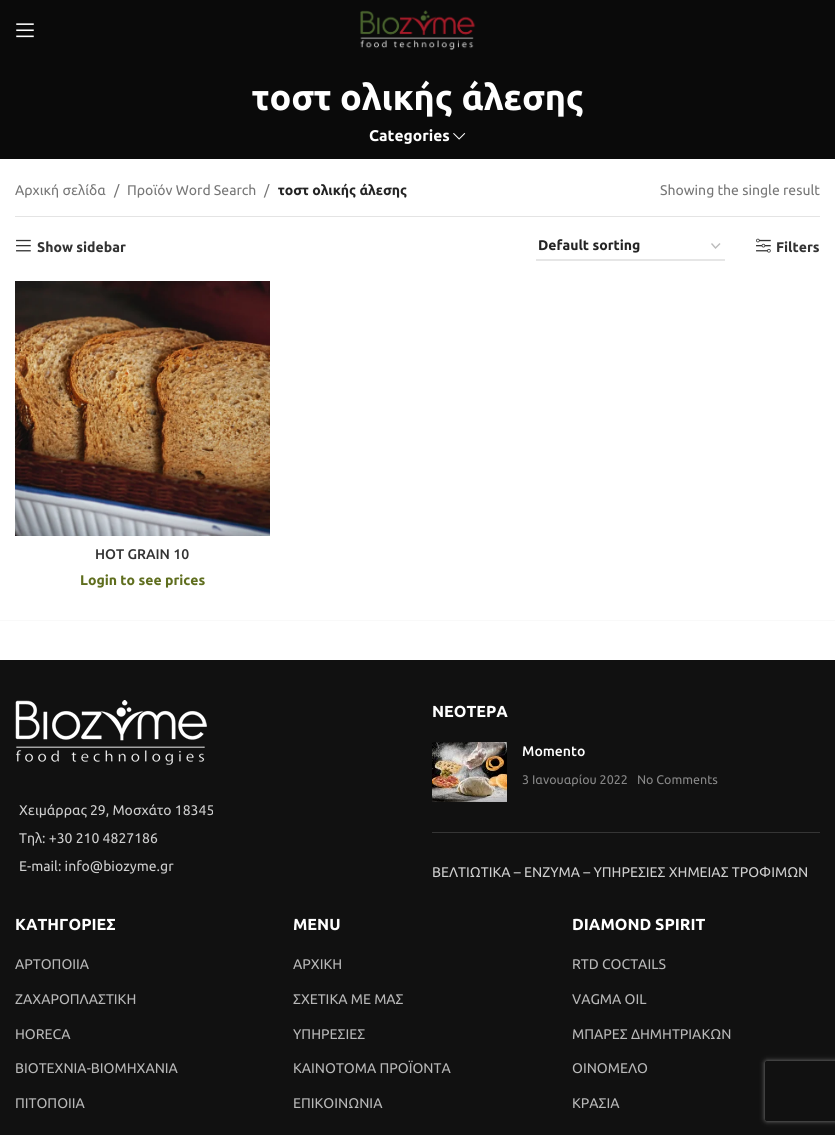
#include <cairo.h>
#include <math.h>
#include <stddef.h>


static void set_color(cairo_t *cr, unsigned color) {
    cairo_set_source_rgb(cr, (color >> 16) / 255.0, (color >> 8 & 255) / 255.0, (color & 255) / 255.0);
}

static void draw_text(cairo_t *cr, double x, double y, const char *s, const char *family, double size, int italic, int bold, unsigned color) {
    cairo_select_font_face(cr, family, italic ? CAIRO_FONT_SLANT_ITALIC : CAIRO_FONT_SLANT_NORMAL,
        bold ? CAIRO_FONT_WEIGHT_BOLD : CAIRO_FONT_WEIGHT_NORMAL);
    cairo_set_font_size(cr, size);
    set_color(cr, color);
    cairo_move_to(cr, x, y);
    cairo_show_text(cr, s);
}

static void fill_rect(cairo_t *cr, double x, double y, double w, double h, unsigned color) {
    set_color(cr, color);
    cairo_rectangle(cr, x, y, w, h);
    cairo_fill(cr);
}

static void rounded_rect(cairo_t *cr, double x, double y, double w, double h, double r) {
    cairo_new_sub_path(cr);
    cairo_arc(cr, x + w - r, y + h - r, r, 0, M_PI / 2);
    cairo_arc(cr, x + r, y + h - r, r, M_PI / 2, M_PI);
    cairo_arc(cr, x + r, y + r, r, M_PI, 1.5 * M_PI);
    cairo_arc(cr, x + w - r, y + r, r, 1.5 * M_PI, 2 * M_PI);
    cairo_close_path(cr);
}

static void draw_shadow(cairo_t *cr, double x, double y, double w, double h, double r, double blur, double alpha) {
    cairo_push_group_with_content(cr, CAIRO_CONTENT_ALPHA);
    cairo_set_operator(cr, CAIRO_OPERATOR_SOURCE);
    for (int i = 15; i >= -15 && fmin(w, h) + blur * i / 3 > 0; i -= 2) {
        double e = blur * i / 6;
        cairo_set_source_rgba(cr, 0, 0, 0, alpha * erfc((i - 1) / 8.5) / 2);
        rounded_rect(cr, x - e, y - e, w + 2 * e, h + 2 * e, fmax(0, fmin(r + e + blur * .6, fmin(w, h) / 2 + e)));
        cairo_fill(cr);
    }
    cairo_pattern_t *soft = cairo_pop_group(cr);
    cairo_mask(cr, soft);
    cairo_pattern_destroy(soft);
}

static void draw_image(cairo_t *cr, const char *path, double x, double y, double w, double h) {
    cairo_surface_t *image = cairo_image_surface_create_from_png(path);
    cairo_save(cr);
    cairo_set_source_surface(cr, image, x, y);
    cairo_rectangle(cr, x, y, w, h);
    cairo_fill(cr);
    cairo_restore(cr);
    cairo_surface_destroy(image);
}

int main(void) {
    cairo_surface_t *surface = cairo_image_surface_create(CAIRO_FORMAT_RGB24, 835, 1135);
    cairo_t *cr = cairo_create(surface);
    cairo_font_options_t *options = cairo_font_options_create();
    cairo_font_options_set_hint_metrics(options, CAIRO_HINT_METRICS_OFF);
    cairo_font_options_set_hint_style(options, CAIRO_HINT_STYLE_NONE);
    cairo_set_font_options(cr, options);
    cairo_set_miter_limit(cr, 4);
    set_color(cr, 0xFFFFFF);
    cairo_paint(cr);
    fill_rect(cr, 0, 0, 835, 159, 0x0A0A0A);
    draw_image(cr, "assets/img1.png", 16, 23, 18, 15);
    draw_image(cr, "assets/img2.png", 360, 10, 116, 40);
    draw_text(cr, 252, 110, "τοστ ολικής άλεσης", "Ubuntu", 36, 0, 1, 0xFFFFFF);
    draw_text(cr, 369, 141, "Categories", "Ubuntu", 15.5, 0, 1, 0xFFFFFF);
    draw_image(cr, "assets/img3.png", 453, 133, 13, 7);
    fill_rect(cr, 15, 216, 805, 1, 0xE4E4E4);
    draw_text(cr, 15, 195, "Αρχική σελίδα", "Ubuntu", 14, 0, 0, 0x767676);
    draw_text(cr, 114, 195, "/", "Ubuntu", 14, 0, 0, 0x767676);
    draw_text(cr, 127, 195, "Προϊόν Word Search", "Ubuntu", 14, 0, 0, 0x767676);
    draw_text(cr, 264, 195, "/", "Ubuntu", 14, 0, 0, 0x767676);
    draw_text(cr, 278, 195, "τοστ ολικής άλεσης", "Ubuntu", 14, 0, 1, 0x242424);
    draw_text(cr, 660, 195, "Showing the single result", "Ubuntu", 14, 0, 0, 0x767676);
    draw_image(cr, "assets/img4.png", 16, 239, 15, 13);
    draw_text(cr, 37, 252, "Show sidebar", "Ubuntu", 14, 0, 1, 0x333333);
    cairo_new_path(cr);
    cairo_move_to(cr, 711.5, 243.5);
    cairo_line_to(cr, 715.5, 248);
    cairo_line_to(cr, 720, 243.5);
    set_color(cr, 0xBBBBBB);
    cairo_set_line_width(cr, 1.4);
    cairo_stroke(cr);
    fill_rect(cr, 536, 259, 189, 2, 0xE6E6E6);
    draw_text(cr, 538, 250, "Default sorting", "Ubuntu", 14, 0, 1, 0x242424);
    draw_image(cr, "assets/img5.png", 756, 238, 15, 15);
    draw_text(cr, 776, 252, "Filters", "Ubuntu", 14, 0, 1, 0x333333);
    draw_image(cr, "assets/img6.png", 15, 281, 255, 255);
    draw_text(cr, 95, 559, "HOT GRAIN 10", "Ubuntu Medium", 14, 0, 0, 0x333333);
    draw_text(cr, 80, 585, "Login to see prices", "Ubuntu", 14, 0, 1, 0x5F6E1E);
    fill_rect(cr, 0, 620, 835, 1, 0xF9F9F9);
    fill_rect(cr, 0, 660, 835, 475, 0x111111);
    draw_image(cr, "assets/img7.png", 15, 700, 192, 65);
    draw_text(cr, 19, 815, "Χειμάρρας 29, Μοσχάτο 18345", "Ubuntu", 14, 0, 0, 0xCFCFCF);
    draw_text(cr, 19, 843, "Τηλ: +30 210 4827186", "Ubuntu", 14, 0, 0, 0xCFCFCF);
    draw_text(cr, 19, 871, "E-mail: info@biozyme.gr", "Ubuntu", 14, 0, 0, 0xCFCFCF);
    fill_rect(cr, 432, 832, 388, 1, 0x353535);
    draw_text(cr, 432, 717, "ΝΕΟΤΕΡΑ", "Ubuntu", 16, 0, 1, 0xFFFFFF);
    draw_image(cr, "assets/img8.png", 432, 742, 75, 60);
    draw_text(cr, 522, 756, "Momento", "Ubuntu Medium", 14, 0, 0, 0xFFFFFF);
    draw_text(cr, 522, 784, "3 Ιανουαρίου 2022", "Ubuntu", 12.5, 0, 0, 0x888888);
    draw_text(cr, 637, 784, "No Comments", "Ubuntu", 12.5, 0, 0, 0x888888);
    draw_text(cr, 432, 877, "ΒΕΛΤΙΩΤΙΚΑ – ΕΝΖΥΜΑ – ΥΠΗΡΕΣΙΕΣ ΧΗΜΕΙΑΣ ΤΡΟΦΙΜΩΝ", "Ubuntu", 14, 0, 0, 0xCFCFCF);
    draw_text(cr, 15, 930, "ΚΑΤΗΓΟΡΙΕΣ", "Ubuntu", 16, 0, 1, 0xFFFFFF);
    draw_text(cr, 15, 969, "ΑΡΤΟΠΟΙΙΑ", "Ubuntu", 14, 0, 0, 0xB8B8B8);
    draw_text(cr, 15, 1004, "ΖΑΧΑΡΟΠΛΑΣΤΙΚΗ", "Ubuntu", 14, 0, 0, 0xB8B8B8);
    draw_text(cr, 15, 1039, "HORECA", "Ubuntu", 14, 0, 0, 0xB8B8B8);
    draw_text(cr, 15, 1073, "BIOTEXNIA-BIOMHXANIA", "Ubuntu", 14, 0, 0, 0xB8B8B8);
    draw_text(cr, 15, 1108, "ΠΙΤΟΠΟΙΙΑ", "Ubuntu", 14, 0, 0, 0xB8B8B8);
    draw_text(cr, 293, 930, "MENU", "Ubuntu", 16, 0, 1, 0xFFFFFF);
    draw_text(cr, 293, 969, "ΑΡΧΙΚΗ", "Ubuntu", 14, 0, 0, 0xB8B8B8);
    draw_text(cr, 293, 1004, "ΣΧΕΤΙΚΑ ΜΕ ΜΑΣ", "Ubuntu", 14, 0, 0, 0xB8B8B8);
    draw_text(cr, 293, 1039, "ΥΠΗΡΕΣΙΕΣ", "Ubuntu", 14, 0, 0, 0xB8B8B8);
    draw_text(cr, 293, 1073, "ΚΑΙΝΟTΟΜΑ ΠΡΟΪΟΝΤΑ", "Ubuntu", 14, 0, 0, 0xB8B8B8);
    draw_text(cr, 293, 1108, "ΕΠΙΚΟΙΝΩΝΙΑ", "Ubuntu", 14, 0, 0, 0xB8B8B8);
    draw_text(cr, 572, 930, "DIAMOND SPIRIT", "Ubuntu", 16, 0, 1, 0xFFFFFF);
    draw_text(cr, 572, 969, "RTD COCTAILS", "Ubuntu", 14, 0, 0, 0xB8B8B8);
    draw_text(cr, 572, 1004, "VAGMA OIL", "Ubuntu", 14, 0, 0, 0xB8B8B8);
    draw_text(cr, 572, 1039, "ΜΠΑΡΕΣ ΔΗΜΗΤΡΙΑΚΩΝ", "Ubuntu", 14, 0, 0, 0xB8B8B8);
    draw_text(cr, 572, 1073, "ΟΙΝΟΜΕΛΟ", "Ubuntu", 14, 0, 0, 0xB8B8B8);
    draw_text(cr, 572, 1108, "ΚΡΑΣΙΑ", "Ubuntu", 14, 0, 0, 0xB8B8B8);
    cairo_save(cr);
    cairo_set_fill_rule(cr, CAIRO_FILL_RULE_EVEN_ODD);
    cairo_new_path(cr);
    cairo_move_to(cr, 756, 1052);
    cairo_line_to(cr, 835, 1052);
    cairo_line_to(cr, 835, 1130);
    cairo_line_to(cr, 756, 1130);
    cairo_close_path(cr);
    cairo_move_to(cr, 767, 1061);
    cairo_line_to(cr, 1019, 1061);
    cairo_curve_to(cr, 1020, 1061, 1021, 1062, 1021, 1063);
    cairo_line_to(cr, 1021, 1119);
    cairo_curve_to(cr, 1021, 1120, 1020, 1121, 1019, 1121);
    cairo_line_to(cr, 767, 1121);
    cairo_curve_to(cr, 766, 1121, 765, 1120, 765, 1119);
    cairo_line_to(cr, 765, 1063);
    cairo_curve_to(cr, 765, 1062, 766, 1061, 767, 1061);
    cairo_close_path(cr);
    cairo_clip(cr);
    set_color(cr, 0x808080);
    draw_shadow(cr, 765, 1061, 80, 60, 2, 2.5, 1);
    cairo_restore(cr);
    set_color(cr, 0x111111);
    rounded_rect(cr, 823, 1083, 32, 40, 20);
    cairo_fill(cr);
    cairo_surface_write_to_png(surface, "output.png");
    cairo_font_options_destroy(options);
    cairo_destroy(cr);
    cairo_surface_destroy(surface);
    return 0;
}
